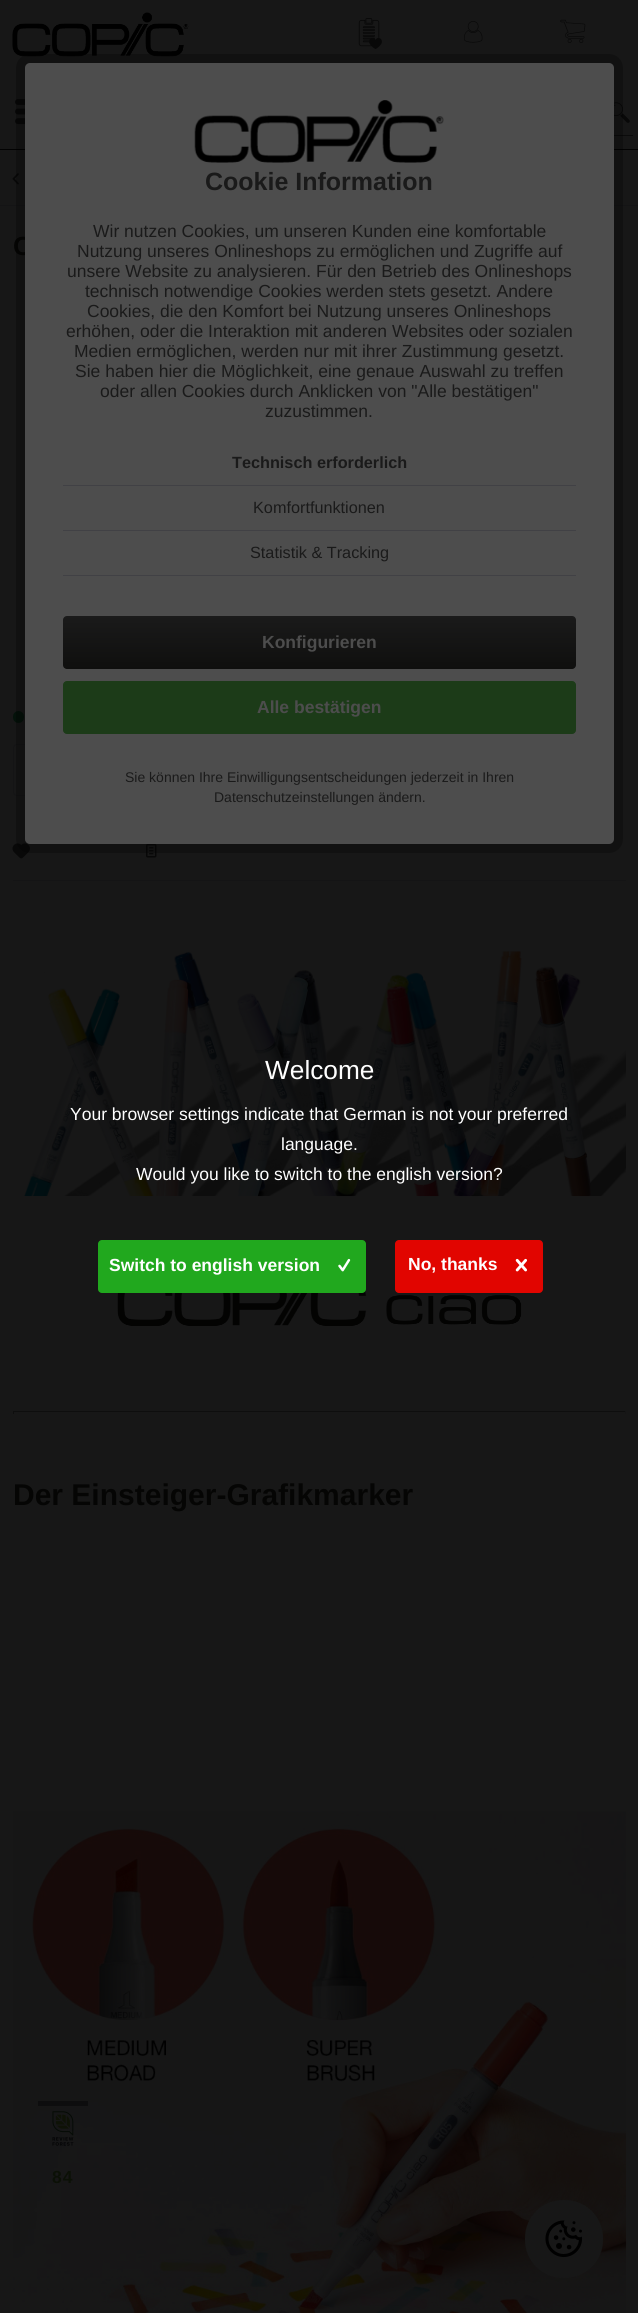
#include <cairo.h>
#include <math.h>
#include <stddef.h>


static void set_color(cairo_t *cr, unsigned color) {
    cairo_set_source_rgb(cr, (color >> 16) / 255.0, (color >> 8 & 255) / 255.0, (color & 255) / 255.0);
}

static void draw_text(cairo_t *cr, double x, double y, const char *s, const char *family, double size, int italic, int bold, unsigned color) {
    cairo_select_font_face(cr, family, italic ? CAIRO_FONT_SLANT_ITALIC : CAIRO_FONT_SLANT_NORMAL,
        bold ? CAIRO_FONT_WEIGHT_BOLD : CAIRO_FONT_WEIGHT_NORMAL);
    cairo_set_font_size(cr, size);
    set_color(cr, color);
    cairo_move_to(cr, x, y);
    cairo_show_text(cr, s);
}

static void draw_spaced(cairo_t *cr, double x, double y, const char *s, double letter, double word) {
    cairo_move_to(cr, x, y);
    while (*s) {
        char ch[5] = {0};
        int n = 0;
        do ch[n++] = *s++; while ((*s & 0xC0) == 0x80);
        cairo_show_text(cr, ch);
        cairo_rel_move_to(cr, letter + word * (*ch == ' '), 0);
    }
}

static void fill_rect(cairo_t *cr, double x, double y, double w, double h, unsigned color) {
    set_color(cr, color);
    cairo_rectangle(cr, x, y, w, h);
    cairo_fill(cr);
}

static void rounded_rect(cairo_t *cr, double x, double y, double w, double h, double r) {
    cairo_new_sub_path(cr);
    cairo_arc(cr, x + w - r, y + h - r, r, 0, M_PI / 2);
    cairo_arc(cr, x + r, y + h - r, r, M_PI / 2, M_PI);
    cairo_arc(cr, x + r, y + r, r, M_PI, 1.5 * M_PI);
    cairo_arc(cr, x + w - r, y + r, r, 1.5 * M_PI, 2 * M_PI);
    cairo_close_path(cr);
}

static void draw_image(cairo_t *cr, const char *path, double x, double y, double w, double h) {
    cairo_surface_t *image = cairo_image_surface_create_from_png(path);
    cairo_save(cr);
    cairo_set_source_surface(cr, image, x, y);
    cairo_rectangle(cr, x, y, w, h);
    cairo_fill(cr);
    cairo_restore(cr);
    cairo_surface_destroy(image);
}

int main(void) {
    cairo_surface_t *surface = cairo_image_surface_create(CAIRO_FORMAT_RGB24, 638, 2313);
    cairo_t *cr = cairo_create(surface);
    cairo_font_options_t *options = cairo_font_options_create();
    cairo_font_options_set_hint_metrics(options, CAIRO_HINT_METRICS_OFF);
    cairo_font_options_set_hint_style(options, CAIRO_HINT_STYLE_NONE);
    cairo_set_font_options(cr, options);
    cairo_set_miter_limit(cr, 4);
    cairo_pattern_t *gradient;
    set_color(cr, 0x171717);
    cairo_paint(cr);
    fill_rect(cr, 0, 149, 638, 1, 0x020202);
    draw_image(cr, "assets/img1.png", 12, 12, 177, 45);
    draw_image(cr, "assets/img2.png", 358, 18, 24, 32);
    draw_image(cr, "assets/img3.png", 464, 21, 19, 22);
    draw_image(cr, "assets/img4.png", 560, 19, 26, 24);
    draw_image(cr, "assets/img5.png", 15, 99, 10, 26);
    draw_image(cr, "assets/img6.png", 614, 102, 16, 21);
    fill_rect(cr, 614, 135, 19, 1, 0x0B0B0B);
    fill_rect(cr, 0, 205, 638, 1, 0x141415);
    draw_image(cr, "assets/img8.png", 12, 173, 7, 12);
    draw_text(cr, 13, 255, "C", "Liberation Sans", 26.25, 0, 1, 0x050504);
    set_color(cr, 0x04120A);
    rounded_rect(cr, 13, 711, 11, 12, 5.5);
    cairo_fill(cr);
    rounded_rect(cr, 13.5, 744.5, 170, 51, 3.5);
    set_color(cr, 0x141415);
    cairo_set_line_width(cr, 1);
    cairo_stroke(cr);
    draw_image(cr, "assets/img9.png", 12, 843, 18, 16);
    draw_image(cr, "assets/img10.png", 146, 844, 11, 14);
    rounded_rect(cr, 20.5, 58.5, 598, 790, 9.5);
    cairo_set_source_rgba(cr, 0, 0, 0, 0.25);
    cairo_set_line_width(cr, 9);
    cairo_stroke(cr);
    set_color(cr, 0x4D4D4D);
    rounded_rect(cr, 25, 63, 589, 781, 5);
    cairo_fill(cr);
    draw_image(cr, "assets/img7.png", 194, 100, 250, 63);
    draw_text(cr, 205, 190, "Cookie Information", "Liberation Sans", 25, 0, 1, 0x1A1A1A);
    draw_text(cr, 93, 237, "Wir nutzen Cookies, um unseren Kunden eine komfortable", "Liberation Sans", 17.5, 0, 0, 0x1A1A1A);
    draw_text(cr, 77, 257, "Nutzung unseres Onlineshops zu ermöglichen und Zugriffe auf", "Liberation Sans", 17.5, 0, 0, 0x1A1A1A);
    draw_text(cr, 67, 277, "unsere Website zu analysieren. Für den Betrieb des Onlineshops", "Liberation Sans", 17.5, 0, 0, 0x1A1A1A);
    draw_text(cr, 85, 297, "technisch notwendige Cookies werden stets gesetzt. Andere", "Liberation Sans", 17.5, 0, 0, 0x1A1A1A);
    draw_text(cr, 87, 317, "Cookies, die den Komfort bei Nutzung unseres Onlineshops", "Liberation Sans", 17.5, 0, 0, 0x1A1A1A);
    draw_text(cr, 66, 337, "erhöhen, oder die Interaktion mit anderen Websites oder sozialen", "Liberation Sans", 17.5, 0, 0, 0x1A1A1A);
    draw_text(cr, 74, 357, "Medien ermöglichen, werden nur mit ihrer Zustimmung gesetzt.", "Liberation Sans", 17.5, 0, 0, 0x1A1A1A);
    draw_text(cr, 75, 377, "Sie haben hier die Möglichkeit, eine genaue Auswahl zu treffen", "Liberation Sans", 17.5, 0, 0, 0x1A1A1A);
    draw_text(cr, 100, 397, "oder allen Cookies durch Anklicken von \"Alle bestätigen\"", "Liberation Sans", 17.5, 0, 0, 0x1A1A1A);
    draw_text(cr, 265, 417, "zuzustimmen.", "Liberation Sans", 17.5, 0, 0, 0x1A1A1A);
    fill_rect(cr, 63, 485, 513, 1, 0x414145);
    draw_text(cr, 232, 468, "Technisch erforderlich", "Liberation Sans", 16.25, 0, 1, 0x1A1A1A);
    fill_rect(cr, 63, 530, 513, 1, 0x414145);
    draw_text(cr, 253, 513, "Komfortfunktionen", "Liberation Sans", 16.25, 0, 0, 0x1A1A1A);
    fill_rect(cr, 63, 575, 513, 1, 0x414145);
    draw_text(cr, 250, 558, "Statistik & Tracking", "Liberation Sans", 16.25, 0, 0, 0x1A1A1A);
    gradient = cairo_pattern_create_linear(319, 616, 319, 669);
    cairo_pattern_add_color_stop_rgba(gradient, 0, 0.102, 0.102, 0.102, 1);
    cairo_pattern_add_color_stop_rgba(gradient, 1, 0.059, 0.059, 0.055, 1);
    cairo_set_source(cr, gradient);
    cairo_pattern_destroy(gradient);
    rounded_rect(cr, 63, 616, 513, 53, 4);
    cairo_fill(cr);
    draw_text(cr, 262, 648, "Konfigurieren", "Liberation Sans", 17.5, 0, 1, 0x4D4D4D);
    set_color(cr, 0x1C3B18);
    rounded_rect(cr, 63.5, 681.5, 512, 52, 3.5);
    cairo_fill_preserve(cr);
    cairo_set_line_width(cr, 1);
    cairo_stroke(cr);
    draw_text(cr, 257, 713, "Alle bestätigen", "Liberation Sans", 17.5, 0, 1, 0x4D4D4D);
    draw_text(cr, 125, 782, "Sie können Ihre Einwilligungsentscheidungen jederzeit in Ihren", "Liberation Sans", 14, 0, 0, 0x1A1A1A);
    draw_text(cr, 214, 802, "Datenschutzeinstellungen ändern.", "Liberation Sans", 14, 0, 0, 0x1A1A1A);
    fill_rect(cr, 13, 880, 613, 1, 0x141415);
    draw_image(cr, "assets/img11.png", 24, 951, 603, 246);
    draw_image(cr, "assets/img12.png", 117, 1289, 405, 37);
    fill_rect(cr, 13, 1411, 613, 1, 0x0E0E0E);
    fill_rect(cr, 625, 1411, 1, 3, 0x151515);
    fill_rect(cr, 13, 1411, 1, 3, 0x0E0E0E);
    draw_text(cr, 13, 1505, "Der Einsteiger-Grafikmarker", "Liberation Sans", 30, 0, 1, 0x050504);
    draw_image(cr, "assets/img13.png", 13, 1811, 614, 502);
    set_color(cr, 0x171717);
    rounded_rect(cr, 525, 2200, 78, 78, 38);
    cairo_fill(cr);
    draw_image(cr, "assets/img14.png", 545, 2220, 38, 38);
    draw_text(cr, 265, 1079, "Welcome", "Liberation Sans", 26.25, 0, 0, 0xFFFFFF);
    draw_text(cr, 70, 1120, "Your browser settings indicate that German is not your preferred", "Liberation Sans", 17.5, 0, 0, 0xFFFFFF);
    draw_text(cr, 281, 1150, "language.", "Liberation Sans", 17.5, 0, 0, 0xFFFFFF);
    draw_text(cr, 136, 1180, "Would you like to switch to the english version?", "Liberation Sans", 17.5, 0, 0, 0xFFFFFF);
    set_color(cr, 0x21A81E);
    rounded_rect(cr, 98, 1240, 268, 53, 4);
    cairo_fill(cr);
    draw_text(cr, 109, 1271, "Switch to english version", "Liberation Sans", 17.5, 0, 1, 0xFFFFFF);
    draw_image(cr, "assets/img15.png", 338, 1258, 13, 14);
    set_color(cr, 0xE10500);
    rounded_rect(cr, 395, 1240, 148, 53, 4);
    cairo_fill(cr);
    draw_text(cr, 408, 1270, "No, thanks", "Liberation Sans", 17.5, 0, 1, 0xFFFFFF);
    draw_image(cr, "assets/img16.png", 515, 1258, 12, 14);
    fill_rect(cr, 38, 2101, 50, 5, 0x0D0D0E);
    draw_image(cr, "assets/img17.png", 52, 2111, 22, 35);
    set_color(cr, 0x0B1006);
    draw_spaced(cr, 52, 2183, "84", 1, 0);
    cairo_surface_write_to_png(surface, "output.png");
    cairo_font_options_destroy(options);
    cairo_destroy(cr);
    cairo_surface_destroy(surface);
    return 0;
}
